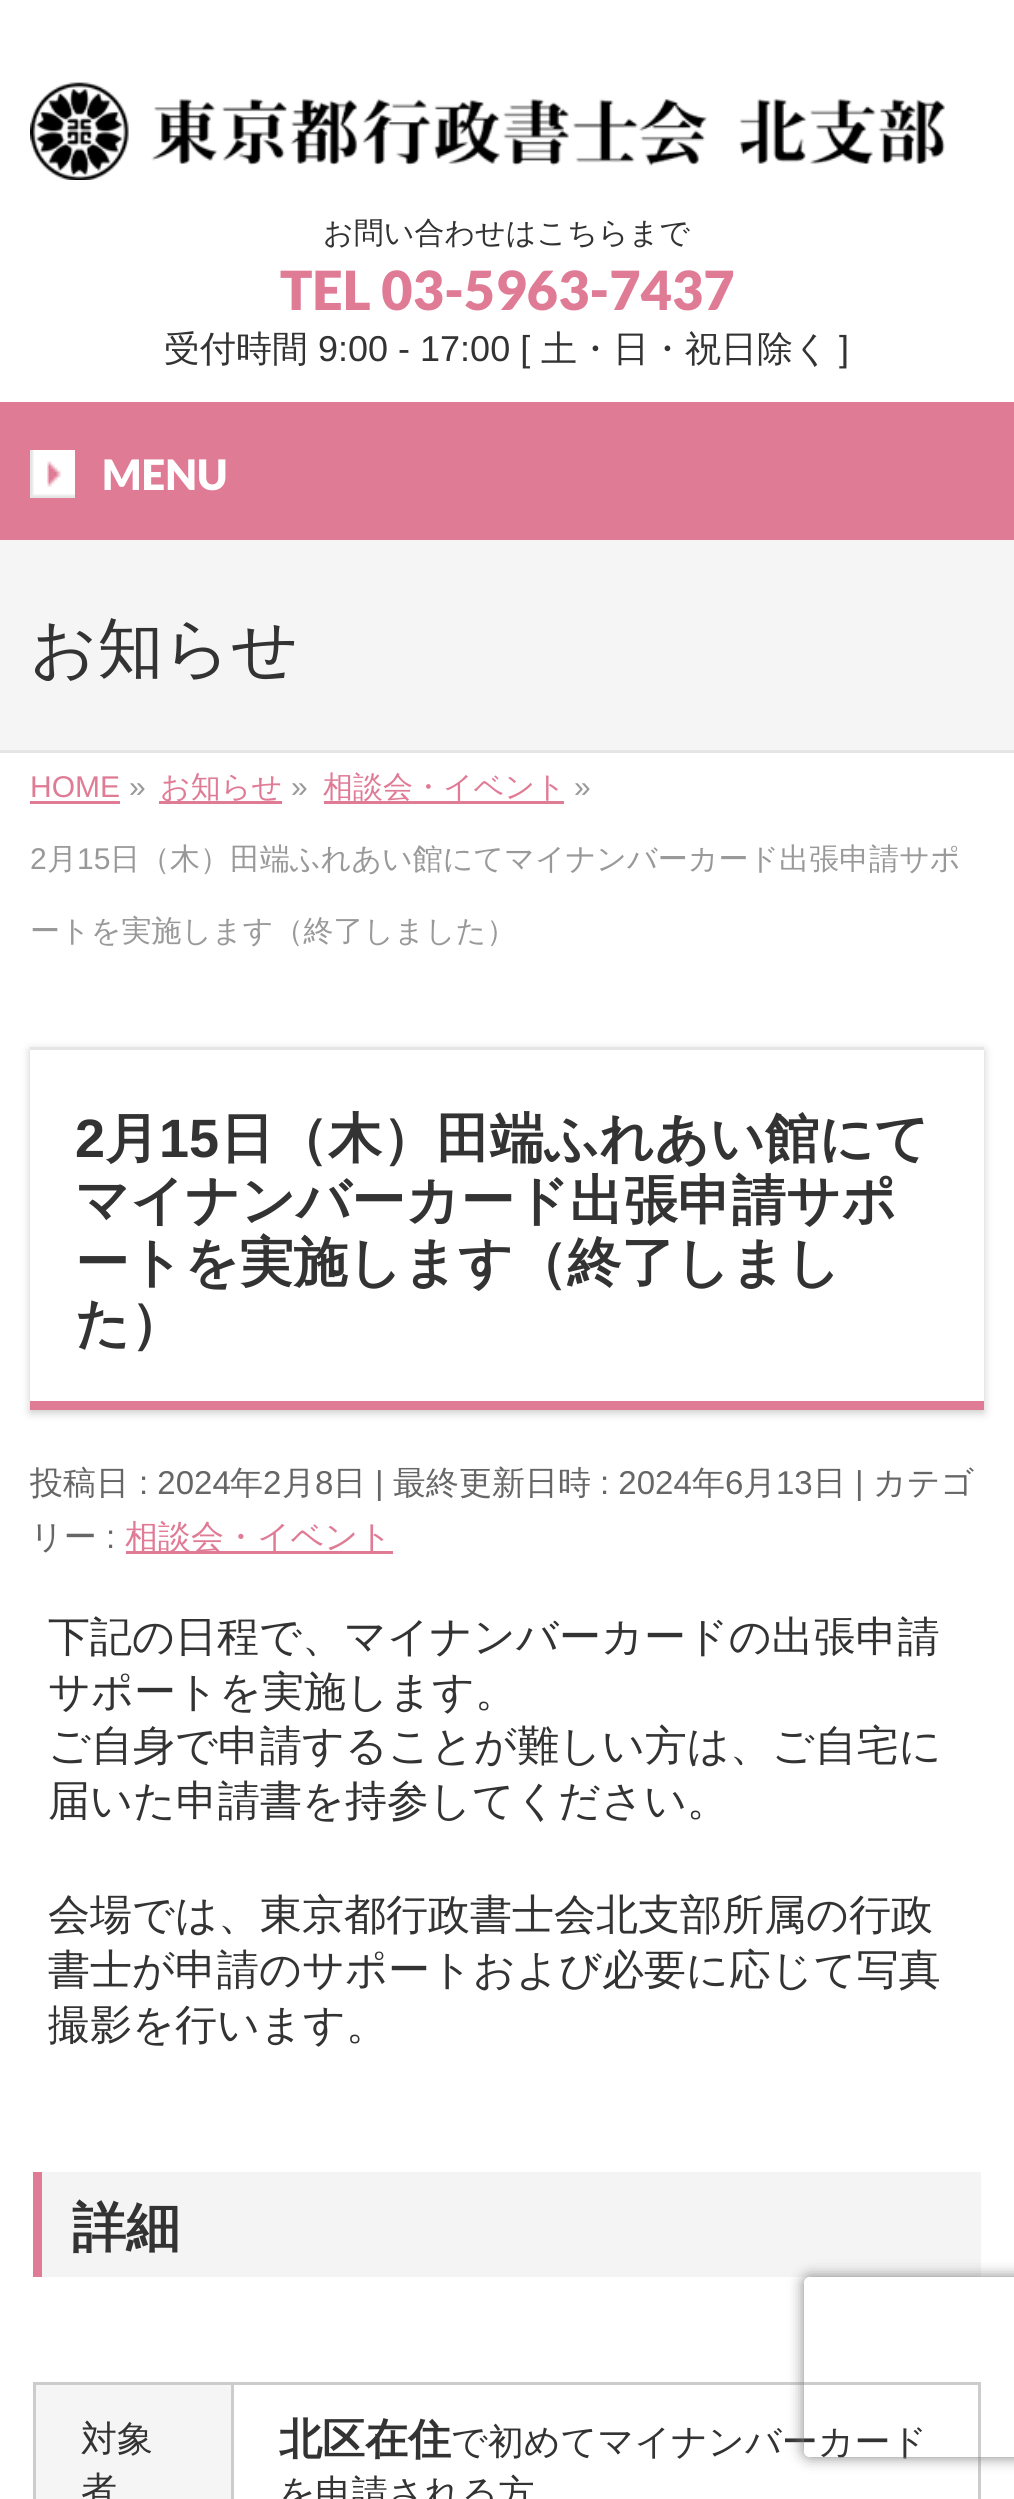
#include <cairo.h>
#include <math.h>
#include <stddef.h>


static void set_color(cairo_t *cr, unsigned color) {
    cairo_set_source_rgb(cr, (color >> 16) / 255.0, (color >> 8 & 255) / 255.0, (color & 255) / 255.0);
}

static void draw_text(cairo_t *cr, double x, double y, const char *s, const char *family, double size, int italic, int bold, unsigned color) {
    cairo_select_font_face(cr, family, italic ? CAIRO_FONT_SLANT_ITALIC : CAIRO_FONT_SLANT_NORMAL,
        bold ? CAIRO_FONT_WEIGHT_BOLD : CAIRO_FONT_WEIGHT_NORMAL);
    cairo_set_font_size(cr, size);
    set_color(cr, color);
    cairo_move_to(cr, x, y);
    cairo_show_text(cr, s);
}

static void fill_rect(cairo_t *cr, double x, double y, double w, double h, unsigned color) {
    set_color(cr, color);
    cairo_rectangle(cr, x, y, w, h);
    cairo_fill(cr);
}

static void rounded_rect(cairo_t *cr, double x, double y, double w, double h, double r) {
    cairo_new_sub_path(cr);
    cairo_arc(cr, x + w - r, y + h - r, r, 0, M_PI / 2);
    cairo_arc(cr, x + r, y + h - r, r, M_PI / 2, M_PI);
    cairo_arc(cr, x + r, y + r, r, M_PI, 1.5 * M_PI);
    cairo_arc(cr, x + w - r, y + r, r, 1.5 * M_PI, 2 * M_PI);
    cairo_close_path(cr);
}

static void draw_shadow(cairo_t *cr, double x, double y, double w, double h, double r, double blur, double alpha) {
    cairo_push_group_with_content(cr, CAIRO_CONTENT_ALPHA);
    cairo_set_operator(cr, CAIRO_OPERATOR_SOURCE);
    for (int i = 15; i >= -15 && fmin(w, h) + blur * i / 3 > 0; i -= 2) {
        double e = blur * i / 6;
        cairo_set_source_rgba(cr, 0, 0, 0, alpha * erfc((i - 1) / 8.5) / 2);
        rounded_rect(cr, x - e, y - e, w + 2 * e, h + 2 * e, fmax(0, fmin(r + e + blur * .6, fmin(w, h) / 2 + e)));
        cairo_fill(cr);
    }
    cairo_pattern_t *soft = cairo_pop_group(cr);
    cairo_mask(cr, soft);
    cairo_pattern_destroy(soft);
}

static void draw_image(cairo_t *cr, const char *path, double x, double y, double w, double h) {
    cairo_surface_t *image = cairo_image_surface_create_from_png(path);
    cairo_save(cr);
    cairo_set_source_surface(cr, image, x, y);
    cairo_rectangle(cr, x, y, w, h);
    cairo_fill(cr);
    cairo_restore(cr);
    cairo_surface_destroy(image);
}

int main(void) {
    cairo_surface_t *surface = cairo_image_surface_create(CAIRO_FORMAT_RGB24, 1014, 2499);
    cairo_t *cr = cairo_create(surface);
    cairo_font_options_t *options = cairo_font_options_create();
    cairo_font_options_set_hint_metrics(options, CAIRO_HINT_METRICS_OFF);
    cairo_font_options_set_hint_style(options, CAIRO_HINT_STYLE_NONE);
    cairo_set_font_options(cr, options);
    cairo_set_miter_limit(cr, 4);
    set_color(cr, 0xFFFFFF);
    cairo_paint(cr);
    draw_image(cr, "assets/img1.png", 30, 82, 915, 98);
    draw_text(cr, 323, 243, "お問い合わせはこちらまで", "WenQuanYi Zen Hei Medium", 30, 0, 0, 0x333333);
    draw_text(cr, 280, 310, "TEL 03-5963-7437", "Lato Black", 54, 0, 0, 0xE07B96);
    draw_text(cr, 164, 361, "受付時間", "WenQuanYi Zen Hei Medium", 36, 0, 0, 0x333333);
    draw_text(cr, 318, 361, "9:00 - 17:00 [", "Liberation Sans", 36, 0, 0, 0x333333);
    draw_text(cr, 541, 361, "土・日・祝日除く", "WenQuanYi Zen Hei Medium", 36, 0, 0, 0x333333);
    draw_text(cr, 839, 361, "]", "Liberation Sans", 36, 0, 0, 0x333333);
    fill_rect(cr, 0, 402, 1014, 138, 0xE07B96);
    draw_image(cr, "assets/img2.png", 30, 450, 45, 48);
    draw_text(cr, 102, 490, "MENU", "Lato Black", 42, 0, 0, 0xFFFFFF);
    fill_rect(cr, 0, 540, 1014, 210, 0xF5F5F5);
    fill_rect(cr, 0, 750, 1014, 3, 0xE5E5E5);
    draw_text(cr, 30, 671, "お知らせ", "WenQuanYi Zen Hei Medium", 66, 0, 0, 0x333333);
    draw_text(cr, 30, 797, "HOME", "Liberation Sans", 30, 0, 0, 0xE07B96);
    fill_rect(cr, 30, 801, 90, 3, 0xE07B96);
    draw_text(cr, 129, 797, "»", "Liberation Sans", 30, 0, 0, 0x999999);
    fill_rect(cr, 159, 801, 123, 3, 0xE07B96);
    draw_text(cr, 160, 797, "お知らせ", "WenQuanYi Zen Hei Medium", 30, 0, 0, 0xE07B96);
    draw_text(cr, 291, 797, "»", "Liberation Sans", 30, 0, 0, 0x999999);
    fill_rect(cr, 324, 801, 240, 3, 0xE07B96);
    draw_text(cr, 323, 797, "相談会・イベント", "WenQuanYi Zen Hei Medium", 30, 0, 0, 0xE07B96);
    draw_text(cr, 574, 797, "»", "Liberation Sans", 30, 0, 0, 0x999999);
    draw_text(cr, 30, 869, "2", "Liberation Sans", 30, 0, 0, 0x999999);
    draw_text(cr, 47, 869, "月", "WenQuanYi Zen Hei Medium", 30, 0, 0, 0x999999);
    draw_text(cr, 77, 869, "15", "Liberation Sans", 30, 0, 0, 0x999999);
    draw_text(cr, 110, 869, "日（木）田端ふれあい館にてマイナンバーカード出張申請サポ", "WenQuanYi Zen Hei Medium", 30, 0, 0, 0x999999);
    draw_text(cr, 30, 941, "ートを実施します（終了しました）", "WenQuanYi Zen Hei Medium", 30, 0, 0, 0x999999);
    cairo_save(cr);
    cairo_set_fill_rule(cr, CAIRO_FILL_RULE_EVEN_ODD);
    cairo_new_path(cr);
    cairo_move_to(cr, 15, 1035);
    cairo_line_to(cr, 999, 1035);
    cairo_line_to(cr, 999, 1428);
    cairo_line_to(cr, 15, 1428);
    cairo_close_path(cr);
    cairo_move_to(cr, 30, 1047);
    cairo_line_to(cr, 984, 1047);
    cairo_line_to(cr, 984, 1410);
    cairo_line_to(cr, 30, 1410);
    cairo_close_path(cr);
    cairo_clip(cr);
    set_color(cr, 0x000000);
    draw_shadow(cr, 30, 1050, 954, 363, 0, 4.5, 0.2);
    cairo_restore(cr);
    fill_rect(cr, 30, 1047, 954, 3, 0xE5E5E5);
    fill_rect(cr, 30, 1401, 954, 9, 0xE07B96);
    draw_text(cr, 75, 1157, "2", "Liberation Sans", 54, 0, 1, 0x333333);
    draw_text(cr, 105, 1157, "月", "WenQuanYi Zen Hei", 54, 0, 1, 0x333333);
    draw_text(cr, 159, 1157, "15", "Liberation Sans", 54, 0, 1, 0x333333);
    draw_text(cr, 220, 1157, "日（木）田端ふれあい館にて", "WenQuanYi Zen Hei", 54, 0, 1, 0x333333);
    draw_text(cr, 75, 1219, "マイナンバーカード出張申請サポ", "WenQuanYi Zen Hei", 54, 0, 1, 0x333333);
    draw_text(cr, 75, 1281, "ートを実施します（終了しまし", "WenQuanYi Zen Hei", 54, 0, 1, 0x333333);
    draw_text(cr, 75, 1342, "た）", "WenQuanYi Zen Hei", 54, 0, 1, 0x333333);
    draw_text(cr, 30, 1494, "投稿日", "WenQuanYi Zen Hei Medium", 33, 0, 0, 0x666666);
    draw_text(cr, 139, 1494, ": 2024", "Liberation Sans", 33, 0, 0, 0x666666);
    draw_text(cr, 230, 1494, "年", "WenQuanYi Zen Hei Medium", 33, 0, 0, 0x666666);
    draw_text(cr, 263, 1494, "2", "Liberation Sans", 33, 0, 0, 0x666666);
    draw_text(cr, 282, 1494, "月", "WenQuanYi Zen Hei Medium", 33, 0, 0, 0x666666);
    draw_text(cr, 315, 1494, "8", "Liberation Sans", 33, 0, 0, 0x666666);
    draw_text(cr, 333, 1494, "日", "WenQuanYi Zen Hei Medium", 33, 0, 0, 0x666666);
    draw_text(cr, 375, 1494, "|", "Liberation Sans", 33, 0, 0, 0x666666);
    draw_text(cr, 393, 1494, "最終更新日時", "WenQuanYi Zen Hei Medium", 33, 0, 0, 0x666666);
    draw_text(cr, 600, 1494, ": 2024", "Liberation Sans", 33, 0, 0, 0x666666);
    draw_text(cr, 692, 1494, "年", "WenQuanYi Zen Hei Medium", 33, 0, 0, 0x666666);
    draw_text(cr, 725, 1494, "6", "Liberation Sans", 33, 0, 0, 0x666666);
    draw_text(cr, 743, 1494, "月", "WenQuanYi Zen Hei Medium", 33, 0, 0, 0x666666);
    draw_text(cr, 776, 1494, "13", "Liberation Sans", 33, 0, 0, 0x666666);
    draw_text(cr, 813, 1494, "日", "WenQuanYi Zen Hei Medium", 33, 0, 0, 0x666666);
    draw_text(cr, 855, 1494, "|", "Liberation Sans", 33, 0, 0, 0x666666);
    draw_text(cr, 873, 1494, "カテゴ", "WenQuanYi Zen Hei Medium", 33, 0, 0, 0x666666);
    draw_text(cr, 30, 1548, "リー", "WenQuanYi Zen Hei Medium", 33, 0, 0, 0x666666);
    draw_text(cr, 106, 1548, ":", "Liberation Sans", 33, 0, 0, 0x666666);
    fill_rect(cr, 126, 1551, 267, 3, 0xE07B96);
    draw_text(cr, 125, 1548, "相談会・イベント", "WenQuanYi Zen Hei Medium", 33, 0, 0, 0xE07B96);
    draw_text(cr, 48, 1651, "下記の日程で、マイナンバーカードの出張申請", "WenQuanYi Zen Hei Medium", 42, 0, 0, 0x333333);
    draw_text(cr, 48, 1706, "サポートを実施します。", "WenQuanYi Zen Hei Medium", 42, 0, 0, 0x333333);
    draw_text(cr, 48, 1760, "ご自身で申請することが難しい方は、ご自宅に", "WenQuanYi Zen Hei Medium", 42, 0, 0, 0x333333);
    draw_text(cr, 48, 1815, "届いた申請書を持参してください。", "WenQuanYi Zen Hei Medium", 42, 0, 0, 0x333333);
    draw_text(cr, 48, 1929, "会場では、東京都行政書士会北支部所属の行政", "WenQuanYi Zen Hei Medium", 42, 0, 0, 0x333333);
    draw_text(cr, 48, 1984, "書士が申請のサポートおよび必要に応じて写真", "WenQuanYi Zen Hei Medium", 42, 0, 0, 0x333333);
    draw_text(cr, 48, 2039, "撮影を行います。", "WenQuanYi Zen Hei Medium", 42, 0, 0, 0x333333);
    fill_rect(cr, 42, 2172, 939, 105, 0xF4F4F4);
    fill_rect(cr, 33, 2172, 9, 105, 0xE07B96);
    draw_text(cr, 72, 2246, "詳細", "WenQuanYi Zen Hei", 54, 0, 1, 0x333333);
    fill_rect(cr, 33, 2382, 948, 3, 0xCCCCCC);
    fill_rect(cr, 36, 2385, 195, 114, 0xF5F5F5);
    fill_rect(cr, 33, 2382, 3, 117, 0xCCCCCC);
    draw_text(cr, 81, 2451, "対象", "WenQuanYi Zen Hei Medium", 36, 0, 0, 0x333333);
    draw_text(cr, 81, 2502, "者", "WenQuanYi Zen Hei Medium", 36, 0, 0, 0x333333);
    fill_rect(cr, 978, 2382, 3, 117, 0xCCCCCC);
    fill_rect(cr, 231, 2382, 3, 117, 0xCCCCCC);
    draw_text(cr, 279, 2454, "北区在住", "WenQuanYi Zen Hei", 43, 0, 1, 0x333333);
    draw_text(cr, 451, 2454, "で初めてマイナンバーカード", "WenQuanYi Zen Hei Medium", 36, 0, 0, 0x333333);
    draw_text(cr, 279, 2505, "を申請される方", "WenQuanYi Zen Hei Medium", 36, 0, 0, 0x333333);
    cairo_save(cr);
    cairo_set_fill_rule(cr, CAIRO_FILL_RULE_EVEN_ODD);
    cairo_new_path(cr);
    cairo_move_to(cr, 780, 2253);
    cairo_line_to(cr, 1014, 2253);
    cairo_line_to(cr, 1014, 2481);
    cairo_line_to(cr, 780, 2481);
    cairo_close_path(cr);
    cairo_move_to(cr, 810, 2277);
    cairo_line_to(cr, 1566, 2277);
    cairo_curve_to(cr, 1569.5, 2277, 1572, 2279.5, 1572, 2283);
    cairo_line_to(cr, 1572, 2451);
    cairo_curve_to(cr, 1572, 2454.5, 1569.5, 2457, 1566, 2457);
    cairo_line_to(cr, 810, 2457);
    cairo_curve_to(cr, 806.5, 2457, 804, 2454.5, 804, 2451);
    cairo_line_to(cr, 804, 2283);
    cairo_curve_to(cr, 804, 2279.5, 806.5, 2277, 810, 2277);
    cairo_close_path(cr);
    cairo_clip(cr);
    set_color(cr, 0x808080);
    draw_shadow(cr, 804, 2277, 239, 180, 6, 7.5, 1);
    cairo_restore(cr);
    cairo_surface_write_to_png(surface, "output.png");
    cairo_font_options_destroy(options);
    cairo_destroy(cr);
    cairo_surface_destroy(surface);
    return 0;
}
